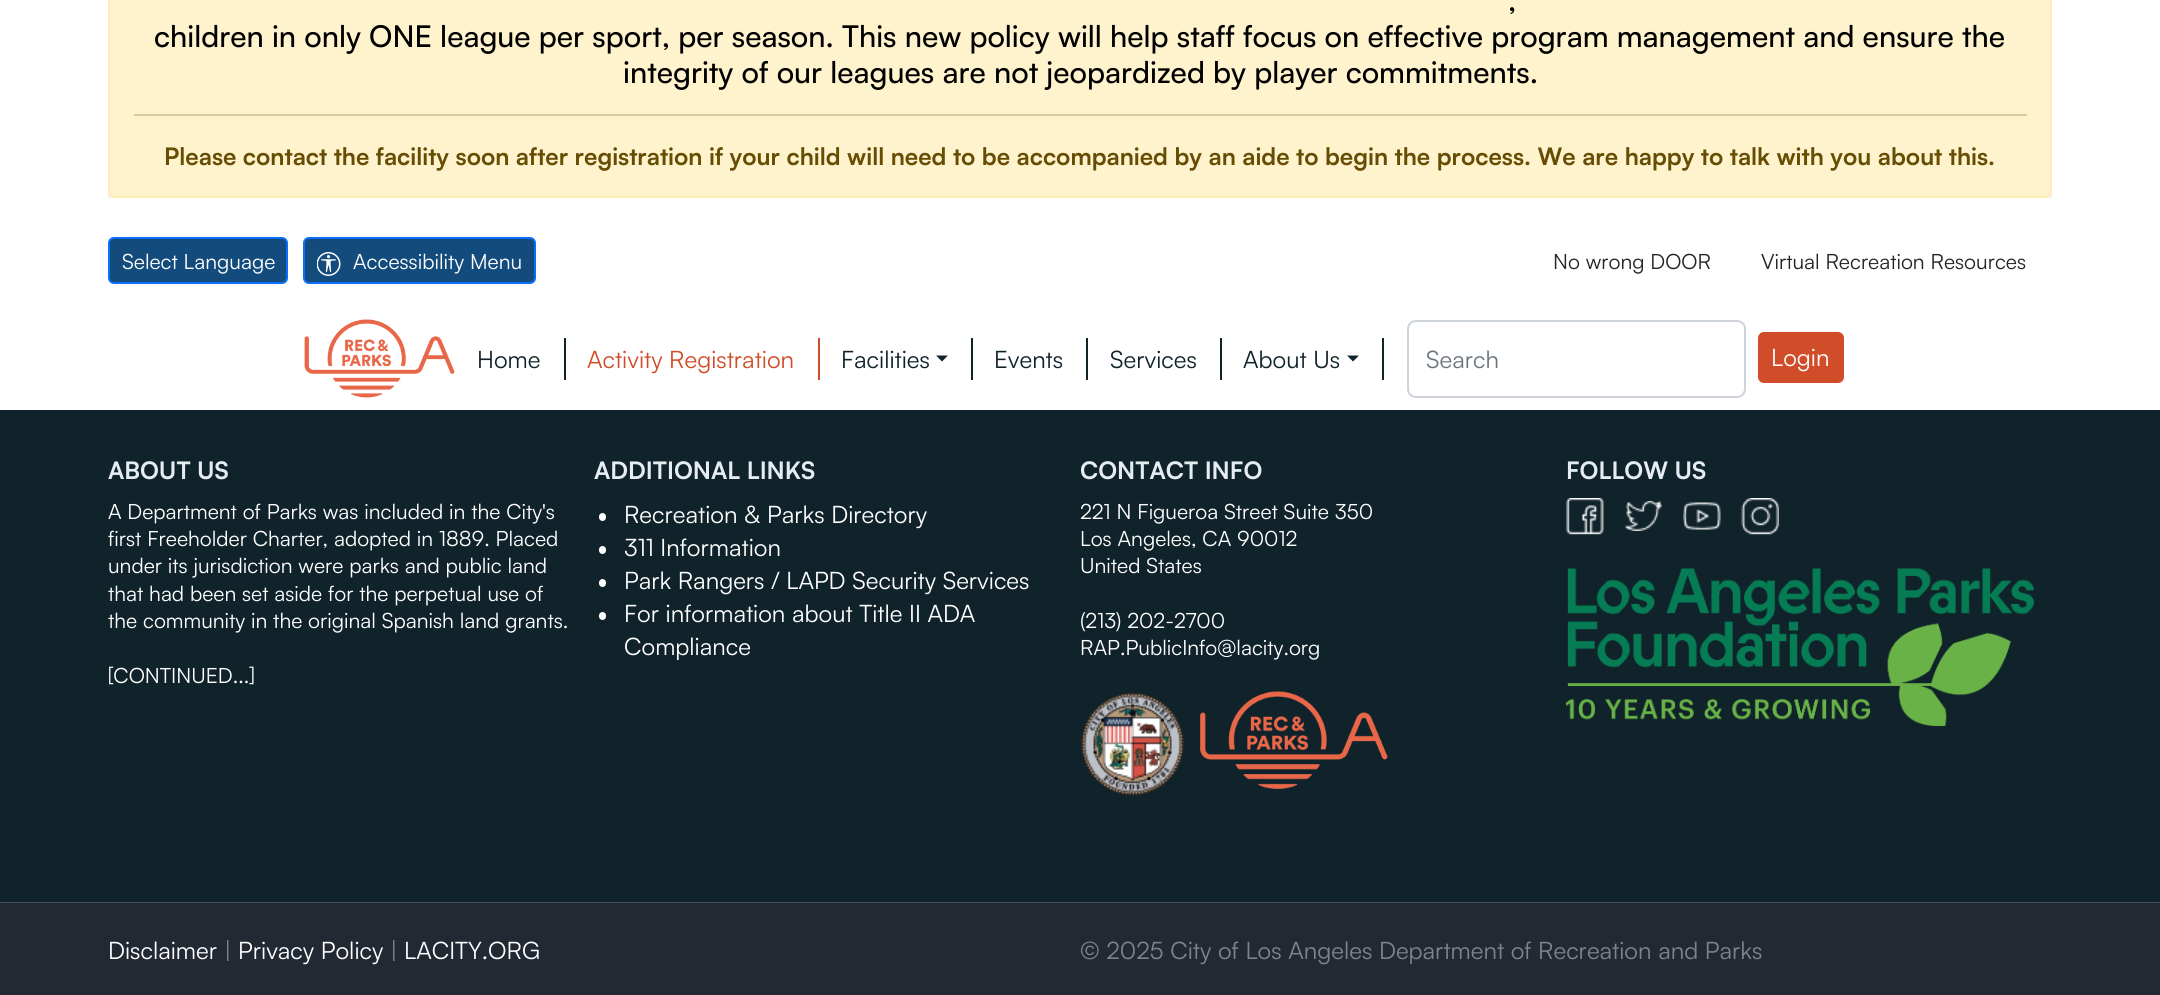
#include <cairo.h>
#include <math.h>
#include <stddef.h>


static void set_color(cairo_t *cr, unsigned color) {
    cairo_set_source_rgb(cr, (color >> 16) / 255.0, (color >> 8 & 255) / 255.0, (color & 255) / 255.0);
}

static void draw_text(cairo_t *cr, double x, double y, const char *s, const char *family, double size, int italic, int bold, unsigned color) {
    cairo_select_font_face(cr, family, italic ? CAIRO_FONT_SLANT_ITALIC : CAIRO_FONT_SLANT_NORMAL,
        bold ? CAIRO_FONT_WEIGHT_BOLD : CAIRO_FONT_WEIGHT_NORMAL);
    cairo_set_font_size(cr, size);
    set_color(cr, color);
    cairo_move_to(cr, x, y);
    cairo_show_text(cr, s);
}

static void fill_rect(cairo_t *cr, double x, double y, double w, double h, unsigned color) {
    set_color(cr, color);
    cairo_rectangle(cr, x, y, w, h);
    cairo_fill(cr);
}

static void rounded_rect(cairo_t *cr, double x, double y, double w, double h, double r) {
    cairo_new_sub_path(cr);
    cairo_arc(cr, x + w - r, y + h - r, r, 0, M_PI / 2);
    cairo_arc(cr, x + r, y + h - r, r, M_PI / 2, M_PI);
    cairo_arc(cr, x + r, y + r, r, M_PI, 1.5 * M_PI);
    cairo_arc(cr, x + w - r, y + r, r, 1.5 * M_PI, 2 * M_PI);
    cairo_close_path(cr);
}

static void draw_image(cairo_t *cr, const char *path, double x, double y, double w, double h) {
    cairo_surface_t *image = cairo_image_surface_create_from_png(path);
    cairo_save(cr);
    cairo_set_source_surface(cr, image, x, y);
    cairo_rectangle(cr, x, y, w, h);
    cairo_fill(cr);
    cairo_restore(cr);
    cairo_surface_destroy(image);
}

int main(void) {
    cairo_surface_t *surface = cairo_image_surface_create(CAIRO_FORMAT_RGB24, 2160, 995);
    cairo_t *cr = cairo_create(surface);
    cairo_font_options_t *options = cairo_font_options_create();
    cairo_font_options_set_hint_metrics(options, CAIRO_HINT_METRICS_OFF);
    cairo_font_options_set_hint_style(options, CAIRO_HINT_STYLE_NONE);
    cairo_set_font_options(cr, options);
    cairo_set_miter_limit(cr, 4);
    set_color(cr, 0xFFFFFF);
    cairo_paint(cr);
    fill_rect(cr, 108, 189, 1944, 9, 0xF8F1E8);
    set_color(cr, 0xFFF3CD);
    rounded_rect(cr, 109, -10, 1942, 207, 8);
    cairo_fill_preserve(cr);
    set_color(cr, 0xFFECB5);
    cairo_stroke(cr);
    draw_text(cr, 1508, 11, ",", "Satoshi Medium", 30, 0, 0, 0x000000);
    draw_text(cr, 154, 47, "children in only ONE league per sport, per season. This new policy will help staff focus on effective program management and ensure the", "Satoshi Medium", 30, 0, 0, 0x000000);
    draw_text(cr, 623, 83, "integrity of our leagues are not jeopardized by player commitments.", "Satoshi Medium", 30, 0, 0, 0x000000);
    fill_rect(cr, 134, 114, 1893, 2, 0xD9CA9B);
    draw_text(cr, 164, 165, "Please contact the facility soon after registration if your child will need to be accompanied by an aide to begin the process. We are happy to talk with you about this.", "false", 24, 0, 1, 0x664D03);
    set_color(cr, 0x134C7C);
    rounded_rect(cr, 109, 238, 178, 45, 5);
    cairo_fill_preserve(cr);
    set_color(cr, 0x0D6EFD);
    cairo_stroke(cr);
    draw_text(cr, 122, 269, "Select Language", "false", 21, 0, 0, 0xFFFFFF);
    set_color(cr, 0x134C7C);
    rounded_rect(cr, 304, 238, 231, 45, 5);
    cairo_fill_preserve(cr);
    set_color(cr, 0x0D6EFD);
    cairo_stroke(cr);
    draw_image(cr, "assets/img1.png", 317, 252, 24, 24);
    draw_text(cr, 353, 269, "Accessibility Menu", "false", 21, 0, 0, 0xFFFFFF);
    draw_text(cr, 1553, 269, "No wrong DOOR", "false", 21, 0, 0, 0x212529);
    draw_text(cr, 1761, 269, "Virtual Recreation Resources", "false", 21, 0, 0, 0x212529);
    draw_image(cr, "assets/img2.png", 304, 319, 151, 79);
    fill_rect(cr, 564, 338, 2, 42, 0x10232A);
    draw_text(cr, 477, 368, "Home", "false", 24, 0, 0, 0x10232A);
    fill_rect(cr, 818, 338, 2, 42, 0xD14C29);
    draw_text(cr, 587, 368, "Activity Registration", "false", 24, 0, 0, 0xD14C29);
    fill_rect(cr, 971, 338, 2, 42, 0x10232A);
    draw_text(cr, 841, 368, "Facilities", "false", 24, 0, 0, 0x10232A);
    cairo_new_path(cr);
    cairo_move_to(cr, 936, 355.5);
    cairo_line_to(cr, 948, 355.5);
    cairo_line_to(cr, 942, 361.5);
    cairo_close_path(cr);
    cairo_fill(cr);
    fill_rect(cr, 1086, 338, 2, 42, 0x10232A);
    draw_text(cr, 994, 368, "Events", "false", 24, 0, 0, 0x10232A);
    fill_rect(cr, 1220, 338, 2, 42, 0x10232A);
    draw_text(cr, 1110, 368, "Services", "false", 24, 0, 0, 0x10232A);
    fill_rect(cr, 1382, 338, 2, 42, 0x10232A);
    draw_text(cr, 1243, 368, "About Us", "false", 24, 0, 0, 0x10232A);
    cairo_new_path(cr);
    cairo_move_to(cr, 1347, 355.5);
    cairo_line_to(cr, 1359, 355.5);
    cairo_line_to(cr, 1353, 361.5);
    cairo_close_path(cr);
    cairo_fill(cr);
    rounded_rect(cr, 1408, 321, 337, 76, 8);
    set_color(cr, 0xCED4DA);
    cairo_stroke(cr);
    draw_text(cr, 1426, 368, "Search", "false", 24, 0, 0, 0x6C757D);
    set_color(cr, 0xD14C29);
    rounded_rect(cr, 1758, 332, 86, 51, 6);
    cairo_fill(cr);
    draw_text(cr, 1771, 366, "Login", "false", 24, 0, 0, 0xFFFFFF);
    fill_rect(cr, 0, 410, 2160, 492, 0x10232A);
    fill_rect(cr, 0, 902, 2160, 1, 0x475060);
    draw_text(cr, 108, 479, "ABOUT US", "false", 24, 0, 1, 0xE5EDF2);
    draw_text(cr, 108, 519, "A Department of Parks was included in the City's", "false", 21, 0, 0, 0xFFFFFF);
    draw_text(cr, 108, 546, "first Freeholder Charter, adopted in 1889. Placed", "false", 21, 0, 0, 0xFFFFFF);
    draw_text(cr, 108, 573, "under its jurisdiction were parks and public land", "false", 21, 0, 0, 0xFFFFFF);
    draw_text(cr, 108, 601, "that had been set aside for the perpetual use of", "false", 21, 0, 0, 0xFFFFFF);
    draw_text(cr, 108, 628, "the community in the original Spanish land grants.", "false", 21, 0, 0, 0xFFFFFF);
    draw_text(cr, 108, 683, "[CONTINUED...]", "false", 21, 0, 0, 0xFFFFFF);
    draw_text(cr, 594, 479, "ADDITIONAL LINKS", "false", 24, 0, 1, 0xE5EDF2);
    set_color(cr, 0xFFFFFF);
    rounded_rect(cr, 599, 513, 7, 8, 3.5);
    cairo_fill(cr);
    draw_text(cr, 624, 523, "Recreation & Parks Directory", "false", 24, 0, 0, 0xFFFFFF);
    rounded_rect(cr, 599, 546, 7, 8, 3.5);
    cairo_fill(cr);
    draw_text(cr, 624, 556, "311 Information", "false", 24, 0, 0, 0xFFFFFF);
    rounded_rect(cr, 599, 579, 7, 8, 3.5);
    cairo_fill(cr);
    draw_text(cr, 624, 589, "Park Rangers / LAPD Security Services", "false", 24, 0, 0, 0xFFFFFF);
    rounded_rect(cr, 599, 612, 7, 8, 3.5);
    cairo_fill(cr);
    draw_text(cr, 624, 622, "For information about Title II ADA", "false", 24, 0, 0, 0xFFFFFF);
    draw_text(cr, 624, 655, "Compliance", "false", 24, 0, 0, 0xFFFFFF);
    draw_text(cr, 1080, 479, "CONTACT INFO", "false", 24, 0, 1, 0xE5EDF2);
    draw_text(cr, 1080, 519, "221 N Figueroa Street Suite 350", "false", 21, 0, 0, 0xFFFFFF);
    draw_text(cr, 1080, 546, "Los Angeles, CA 90012", "false", 21, 0, 0, 0xFFFFFF);
    draw_text(cr, 1080, 573, "United States", "false", 21, 0, 0, 0xFFFFFF);
    draw_text(cr, 1080, 628, "(213) 202-2700", "false", 21, 0, 0, 0xFFFFFF);
    draw_text(cr, 1080, 655, "RAP.PublicInfo@lacity.org", "false", 21, 0, 0, 0xFFFFFF);
    draw_image(cr, "assets/img3.png", 1081, 692, 103, 104);
    draw_image(cr, "assets/img4.png", 1200, 691, 188, 98);
    draw_text(cr, 1566, 479, "FOLLOW US", "false", 24, 0, 1, 0xE5EDF2);
    draw_image(cr, "assets/img5.png", 1566, 498, 38, 37);
    draw_image(cr, "assets/img6.png", 1624, 501, 38, 30);
    draw_image(cr, "assets/img7.png", 1683, 502, 38, 28);
    draw_image(cr, "assets/img8.png", 1741, 498, 38, 37);
    draw_image(cr, "assets/img9.png", 1566, 568, 468, 158);
    fill_rect(cr, 0, 903, 2160, 92, 0x232933);
    draw_text(cr, 108, 959, "Disclaimer", "false", 24, 0, 0, 0xFFFFFF);
    draw_text(cr, 224, 959, "|", "false", 24, 0, 0, 0x7E848C);
    draw_text(cr, 238, 959, "Privacy Policy", "false", 24, 0, 0, 0xFFFFFF);
    draw_text(cr, 390, 959, "|", "false", 24, 0, 0, 0x7E848C);
    draw_text(cr, 404, 959, "LACITY.ORG", "false", 24, 0, 0, 0xFFFFFF);
    draw_text(cr, 1080, 959, "© 2025 City of Los Angeles Department of Recreation and Parks", "false", 24, 0, 0, 0x7E848C);
    cairo_surface_write_to_png(surface, "output.png");
    cairo_font_options_destroy(options);
    cairo_destroy(cr);
    cairo_surface_destroy(surface);
    return 0;
}
